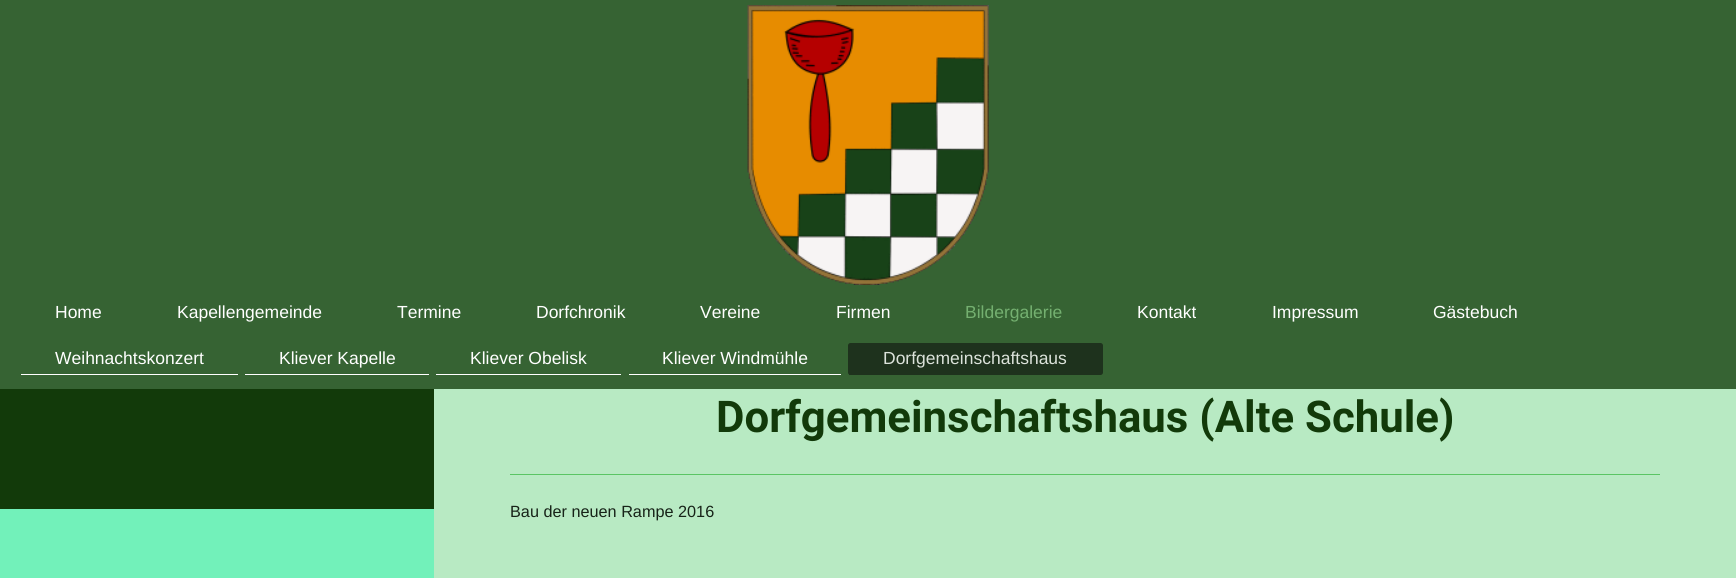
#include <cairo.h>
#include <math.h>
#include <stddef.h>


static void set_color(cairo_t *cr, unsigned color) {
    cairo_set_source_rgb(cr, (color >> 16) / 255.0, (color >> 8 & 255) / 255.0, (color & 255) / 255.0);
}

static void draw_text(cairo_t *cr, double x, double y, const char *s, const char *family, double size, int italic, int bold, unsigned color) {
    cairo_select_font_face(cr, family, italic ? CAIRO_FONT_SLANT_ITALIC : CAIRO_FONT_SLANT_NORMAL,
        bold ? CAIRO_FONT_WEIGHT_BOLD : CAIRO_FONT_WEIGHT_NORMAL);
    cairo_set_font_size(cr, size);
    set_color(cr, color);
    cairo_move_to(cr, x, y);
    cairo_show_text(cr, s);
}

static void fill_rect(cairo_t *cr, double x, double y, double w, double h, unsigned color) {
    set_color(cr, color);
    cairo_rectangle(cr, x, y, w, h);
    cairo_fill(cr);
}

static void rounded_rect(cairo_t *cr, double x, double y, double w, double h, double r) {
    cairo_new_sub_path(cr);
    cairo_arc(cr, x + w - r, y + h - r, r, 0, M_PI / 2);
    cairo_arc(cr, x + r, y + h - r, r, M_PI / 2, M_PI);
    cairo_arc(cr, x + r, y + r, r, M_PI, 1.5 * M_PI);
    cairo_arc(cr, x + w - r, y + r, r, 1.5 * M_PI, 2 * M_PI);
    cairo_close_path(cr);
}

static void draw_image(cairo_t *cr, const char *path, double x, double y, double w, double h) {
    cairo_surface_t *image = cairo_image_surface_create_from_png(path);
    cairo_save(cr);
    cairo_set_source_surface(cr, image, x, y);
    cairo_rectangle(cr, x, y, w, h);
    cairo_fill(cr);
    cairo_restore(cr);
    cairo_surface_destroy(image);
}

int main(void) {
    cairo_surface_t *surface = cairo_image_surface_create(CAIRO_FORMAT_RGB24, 1736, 578);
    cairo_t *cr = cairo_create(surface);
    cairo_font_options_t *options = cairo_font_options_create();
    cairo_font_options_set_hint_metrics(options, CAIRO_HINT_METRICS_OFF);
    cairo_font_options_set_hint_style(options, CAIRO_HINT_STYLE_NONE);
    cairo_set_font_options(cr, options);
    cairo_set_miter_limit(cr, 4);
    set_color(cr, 0x72F1BA);
    cairo_paint(cr);
    fill_rect(cr, 0, 0, 1736, 389, 0x366333);
    draw_image(cr, "assets/img1.png", 747, 5, 242, 280);
    draw_text(cr, 55, 318, "Home", "Liberation Sans", 17.5, 0, 0, 0xFFFFFF);
    draw_text(cr, 177, 318, "Kapellengemeinde", "Liberation Sans", 17.5, 0, 0, 0xFFFFFF);
    draw_text(cr, 397, 318, "Termine", "Liberation Sans", 17.5, 0, 0, 0xFFFFFF);
    draw_text(cr, 536, 318, "Dorfchronik", "Liberation Sans", 17.5, 0, 0, 0xFFFFFF);
    draw_text(cr, 700, 318, "Vereine", "Liberation Sans", 17.5, 0, 0, 0xFFFFFF);
    draw_text(cr, 836, 318, "Firmen", "Liberation Sans", 17.5, 0, 0, 0xFFFFFF);
    draw_text(cr, 965, 318, "Bildergalerie", "Liberation Sans", 17.5, 0, 0, 0x74B070);
    draw_text(cr, 1137, 318, "Kontakt", "Liberation Sans", 17.5, 0, 0, 0xFFFFFF);
    draw_text(cr, 1272, 318, "Impressum", "Liberation Sans", 17.5, 0, 0, 0xFFFFFF);
    draw_text(cr, 1433, 318, "Gästebuch", "Liberation Sans", 17.5, 0, 0, 0xFFFFFF);
    fill_rect(cr, 21, 374, 217, 1, 0xFFFFFF);
    draw_text(cr, 55, 364, "Weihnachtskonzert", "Liberation Sans", 17.5, 0, 0, 0xFFFFFF);
    fill_rect(cr, 245, 374, 184, 1, 0xFFFFFF);
    draw_text(cr, 279, 364, "Kliever Kapelle", "Liberation Sans", 17.5, 0, 0, 0xFFFFFF);
    fill_rect(cr, 436, 374, 185, 1, 0xFFFFFF);
    draw_text(cr, 470, 364, "Kliever Obelisk", "Liberation Sans", 17.5, 0, 0, 0xFFFFFF);
    fill_rect(cr, 629, 374, 212, 1, 0xFFFFFF);
    draw_text(cr, 662, 364, "Kliever Windmühle", "Liberation Sans", 17.5, 0, 0, 0xFFFFFF);
    set_color(cr, 0x1E321D);
    rounded_rect(cr, 848, 343, 255, 32, 2.5);
    cairo_fill(cr);
    fill_rect(cr, 849, 374, 1, 1, 0x1E321D);
    draw_text(cr, 883, 364, "Dorfgemeinschaftshaus", "Liberation Sans", 17.5, 0, 0, 0xDCE3DB);
    fill_rect(cr, 0, 389, 434, 120, 0x123A0A);
    fill_rect(cr, 434, 389, 1302, 189, 0xB8EAC3);
    draw_text(cr, 716, 432, "Dorfgemeinschaftshaus (Alte Schule)", "Roboto", 43.75, 0, 1, 0x123A0A);
    fill_rect(cr, 510, 474, 1150, 1, 0x5AC564);
    draw_text(cr, 510, 517, "Bau der neuen Rampe 2016", "Liberation Sans", 16.25, 0, 0, 0x172318);
    cairo_surface_write_to_png(surface, "output.png");
    cairo_font_options_destroy(options);
    cairo_destroy(cr);
    cairo_surface_destroy(surface);
    return 0;
}
